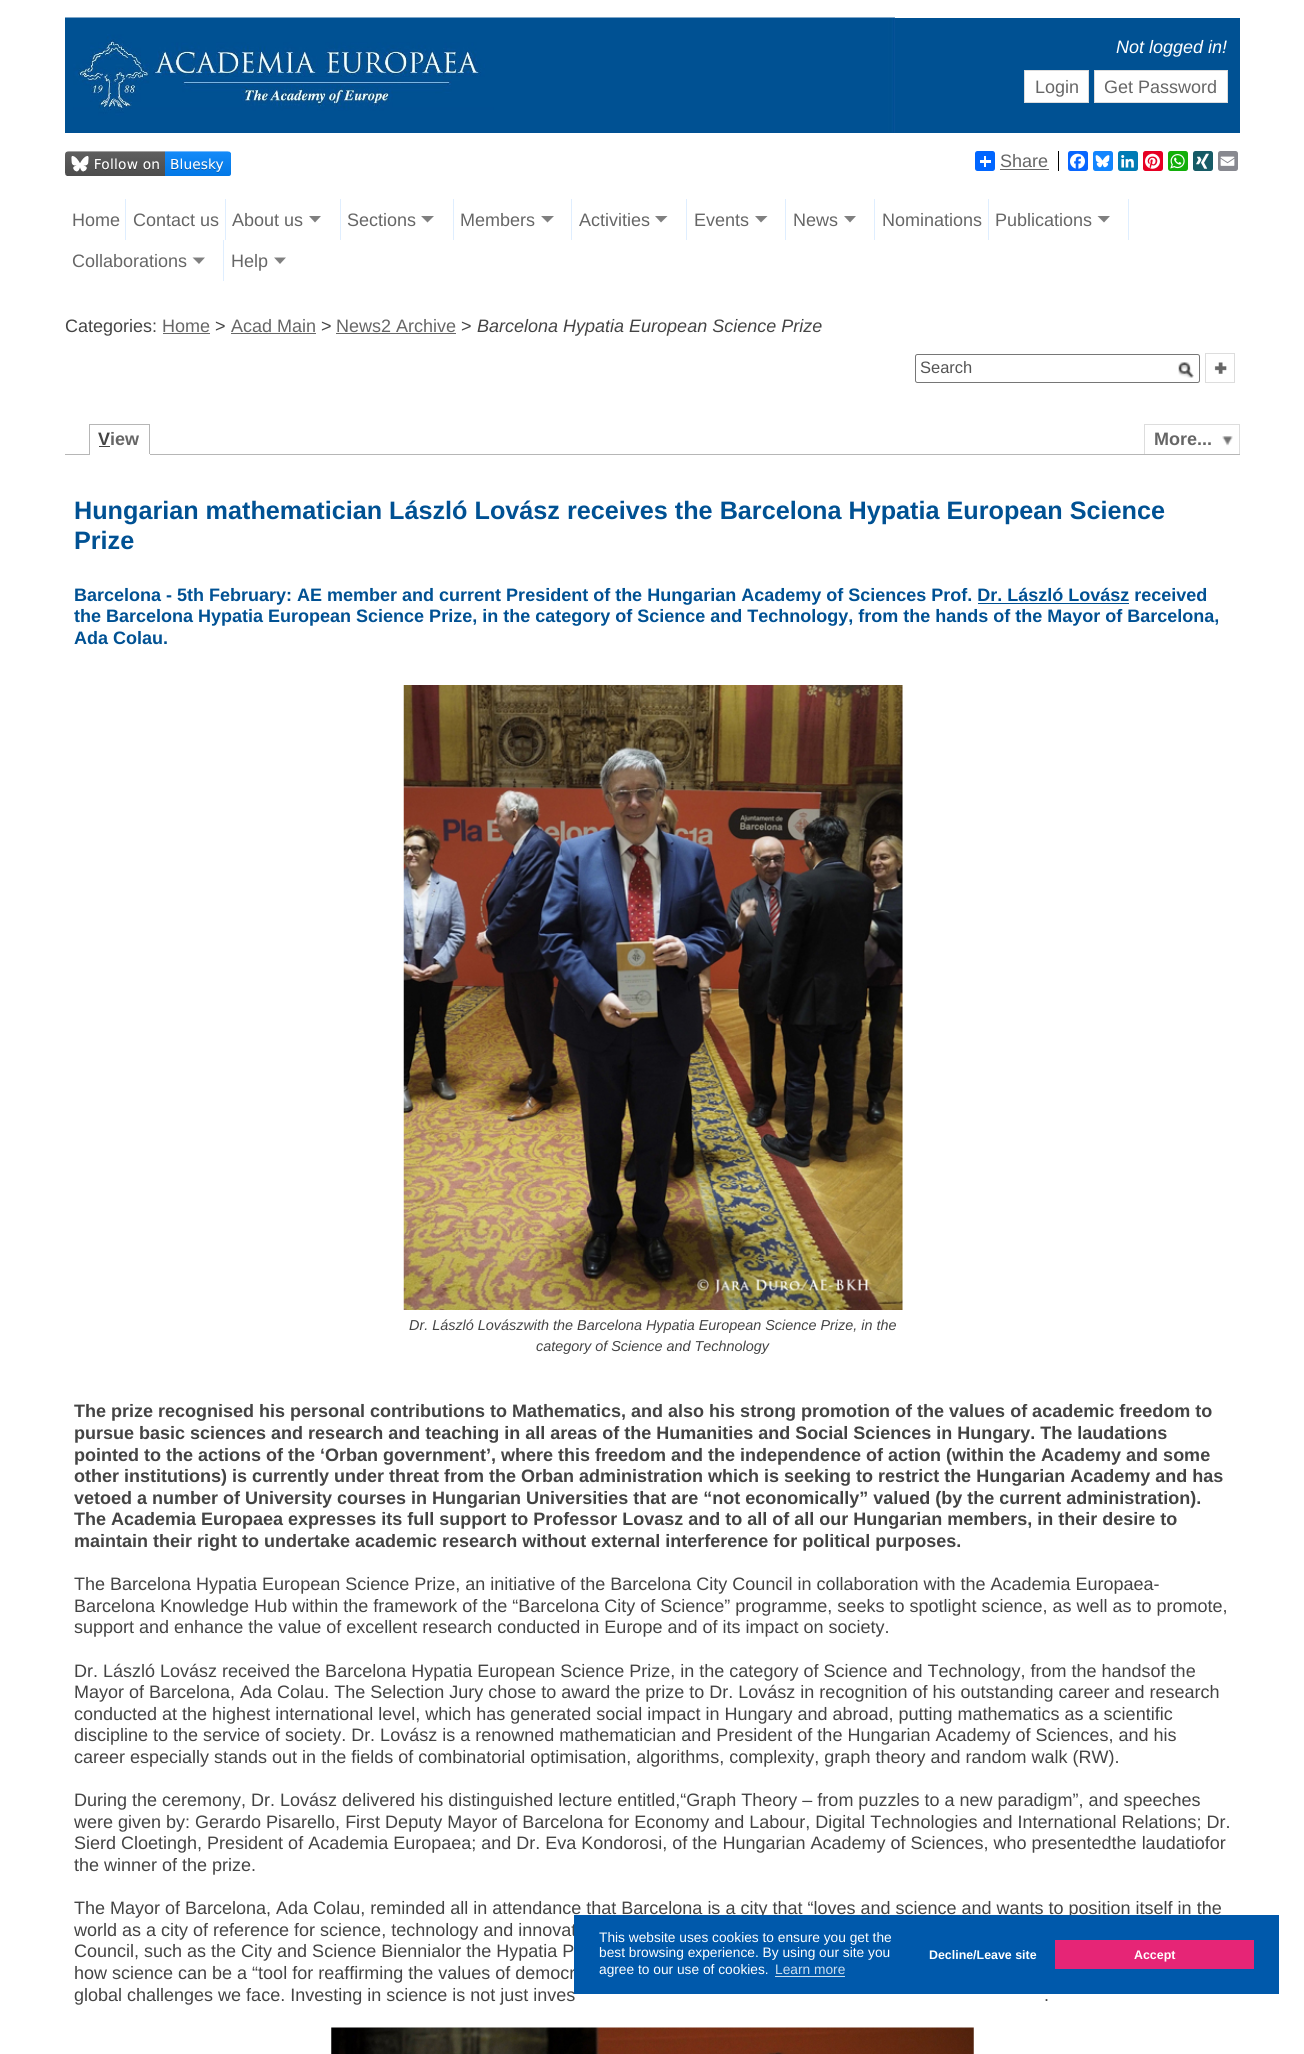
#include <cairo.h>
#include <math.h>
#include <stddef.h>


static void set_color(cairo_t *cr, unsigned color) {
    cairo_set_source_rgb(cr, (color >> 16) / 255.0, (color >> 8 & 255) / 255.0, (color & 255) / 255.0);
}

static void draw_text(cairo_t *cr, double x, double y, const char *s, const char *family, double size, int italic, int bold, unsigned color) {
    cairo_select_font_face(cr, family, italic ? CAIRO_FONT_SLANT_ITALIC : CAIRO_FONT_SLANT_NORMAL,
        bold ? CAIRO_FONT_WEIGHT_BOLD : CAIRO_FONT_WEIGHT_NORMAL);
    cairo_set_font_size(cr, size);
    set_color(cr, color);
    cairo_move_to(cr, x, y);
    cairo_show_text(cr, s);
}

static void fill_rect(cairo_t *cr, double x, double y, double w, double h, unsigned color) {
    set_color(cr, color);
    cairo_rectangle(cr, x, y, w, h);
    cairo_fill(cr);
}

static void rounded_rect(cairo_t *cr, double x, double y, double w, double h, double r) {
    cairo_new_sub_path(cr);
    cairo_arc(cr, x + w - r, y + h - r, r, 0, M_PI / 2);
    cairo_arc(cr, x + r, y + h - r, r, M_PI / 2, M_PI);
    cairo_arc(cr, x + r, y + r, r, M_PI, 1.5 * M_PI);
    cairo_arc(cr, x + w - r, y + r, r, 1.5 * M_PI, 2 * M_PI);
    cairo_close_path(cr);
}

static void draw_image(cairo_t *cr, const char *path, double x, double y, double w, double h) {
    cairo_surface_t *image = cairo_image_surface_create_from_png(path);
    cairo_save(cr);
    cairo_set_source_surface(cr, image, x, y);
    cairo_rectangle(cr, x, y, w, h);
    cairo_fill(cr);
    cairo_restore(cr);
    cairo_surface_destroy(image);
}

int main(void) {
    cairo_surface_t *surface = cairo_image_surface_create(CAIRO_FORMAT_RGB24, 1304, 2054);
    cairo_t *cr = cairo_create(surface);
    cairo_font_options_t *options = cairo_font_options_create();
    cairo_font_options_set_hint_metrics(options, CAIRO_HINT_METRICS_OFF);
    cairo_font_options_set_hint_style(options, CAIRO_HINT_STYLE_NONE);
    cairo_set_font_options(cr, options);
    cairo_set_miter_limit(cr, 4);
    set_color(cr, 0xFFFFFF);
    cairo_paint(cr);
    fill_rect(cr, 65, 18, 1175, 115, 0x005193);
    draw_image(cr, "assets/img1.png", 65, 17, 830, 116);
    draw_text(cr, 1116, 53, "Not logged in!", "Liberation Sans", 18, 1, 0, 0xFFFFFF);
    cairo_rectangle(cr, 1024.5, 70.5, 64, 32);
    cairo_fill_preserve(cr);
    set_color(cr, 0xDDDDDD);
    cairo_set_line_width(cr, 1);
    cairo_stroke(cr);
    draw_text(cr, 1035, 93, "Login", "Liberation Sans", 18, 0, 0, 0x666666);
    set_color(cr, 0xFFFFFF);
    cairo_rectangle(cr, 1094.5, 70.5, 133, 32);
    cairo_fill_preserve(cr);
    set_color(cr, 0xDDDDDD);
    cairo_stroke(cr);
    draw_text(cr, 1104, 93, "Get Password", "Liberation Sans", 18, 0, 0, 0x666666);
    draw_image(cr, "assets/img2.png", 65, 151, 166, 25);
    set_color(cr, 0x0166FF);
    rounded_rect(cr, 975, 151, 20, 20, 2.5);
    cairo_fill(cr);
    fill_rect(cr, 984, 156, 2, 11, 0xFFFFFF);
    fill_rect(cr, 980, 160, 11, 3, 0xFFFFFF);
    draw_text(cr, 1000, 167, "Share", "Liberation Sans", 18, 0, 0, 0x666666);
    fill_rect(cr, 1000, 169, 49, 1, 0x666666);
    fill_rect(cr, 1058, 151, 1, 20, 0x000000);
    set_color(cr, 0x0866FF);
    rounded_rect(cr, 1068, 151, 20, 20, 2.5);
    cairo_fill(cr);
    draw_image(cr, "assets/img3.png", 1070, 153, 15, 16);
    set_color(cr, 0x1285FE);
    rounded_rect(cr, 1093, 151, 20, 20, 2.5);
    cairo_fill(cr);
    draw_image(cr, "assets/img4.png", 1095, 155, 15, 13);
    set_color(cr, 0x007BB5);
    rounded_rect(cr, 1118, 151, 20, 20, 2.5);
    cairo_fill(cr);
    draw_image(cr, "assets/img5.png", 1121, 155, 13, 13);
    set_color(cr, 0xE60023);
    rounded_rect(cr, 1143, 151, 20, 20, 2.5);
    cairo_fill(cr);
    draw_image(cr, "assets/img6.png", 1145, 153, 15, 16);
    set_color(cr, 0x12AF0A);
    rounded_rect(cr, 1168, 151, 20, 20, 2.5);
    cairo_fill(cr);
    draw_image(cr, "assets/img7.png", 1170, 154, 15, 15);
    set_color(cr, 0x165B66);
    rounded_rect(cr, 1193, 151, 20, 20, 2.5);
    cairo_fill(cr);
    draw_image(cr, "assets/img8.png", 1196, 153, 13, 16);
    set_color(cr, 0x888990);
    rounded_rect(cr, 1218, 151, 20, 20, 2.5);
    cairo_fill(cr);
    draw_image(cr, "assets/img9.png", 1220, 156, 15, 10);
    fill_rect(cr, 125, 199, 1, 41, 0xDFEEFF);
    draw_text(cr, 72, 226, "Home", "Liberation Sans", 18, 0, 0, 0x666666);
    fill_rect(cr, 225, 199, 1, 41, 0xDFEEFF);
    draw_text(cr, 133, 226, "Contact us", "Liberation Sans", 18, 0, 0, 0x666666);
    fill_rect(cr, 340, 199, 1, 41, 0xDFEEFF);
    draw_text(cr, 232, 226, "About us", "Liberation Sans", 18, 0, 0, 0x666666);
    set_color(cr, 0x808080);
    cairo_new_path(cr);
    cairo_move_to(cr, 309, 216);
    cairo_line_to(cr, 321, 216);
    cairo_line_to(cr, 315, 222.5);
    cairo_close_path(cr);
    cairo_fill(cr);
    fill_rect(cr, 453, 199, 1, 41, 0xDFEEFF);
    draw_text(cr, 347, 226, "Sections", "Liberation Sans", 18, 0, 0, 0x666666);
    set_color(cr, 0x808080);
    cairo_new_path(cr);
    cairo_move_to(cr, 421, 216);
    cairo_line_to(cr, 434, 216);
    cairo_line_to(cr, 427.5, 222.5);
    cairo_close_path(cr);
    cairo_fill(cr);
    fill_rect(cr, 571, 199, 1, 41, 0xDFEEFF);
    draw_text(cr, 460, 226, "Members", "Liberation Sans", 18, 0, 0, 0x666666);
    set_color(cr, 0x808080);
    cairo_new_path(cr);
    cairo_move_to(cr, 541, 216);
    cairo_line_to(cr, 554, 216);
    cairo_line_to(cr, 547.5, 222.5);
    cairo_close_path(cr);
    cairo_fill(cr);
    fill_rect(cr, 686, 199, 1, 41, 0xDFEEFF);
    draw_text(cr, 579, 226, "Activities", "Liberation Sans", 18, 0, 0, 0x666666);
    set_color(cr, 0x808080);
    cairo_new_path(cr);
    cairo_move_to(cr, 655, 216);
    cairo_line_to(cr, 667.5, 216);
    cairo_line_to(cr, 661, 222.5);
    cairo_close_path(cr);
    cairo_fill(cr);
    fill_rect(cr, 785, 199, 1, 41, 0xDFEEFF);
    draw_text(cr, 694, 226, "Events", "Liberation Sans", 18, 0, 0, 0x666666);
    set_color(cr, 0x808080);
    cairo_new_path(cr);
    cairo_move_to(cr, 755, 216);
    cairo_line_to(cr, 767.5, 216);
    cairo_line_to(cr, 761, 222.5);
    cairo_close_path(cr);
    cairo_fill(cr);
    fill_rect(cr, 874, 199, 1, 41, 0xDFEEFF);
    draw_text(cr, 793, 226, "News", "Liberation Sans", 18, 0, 0, 0x666666);
    set_color(cr, 0x808080);
    cairo_new_path(cr);
    cairo_move_to(cr, 844, 216);
    cairo_line_to(cr, 856, 216);
    cairo_line_to(cr, 850, 222.5);
    cairo_close_path(cr);
    cairo_fill(cr);
    fill_rect(cr, 988, 199, 1, 41, 0xDFEEFF);
    draw_text(cr, 882, 226, "Nominations", "Liberation Sans", 18, 0, 0, 0x666666);
    fill_rect(cr, 1128, 199, 1, 41, 0xDFEEFF);
    draw_text(cr, 995, 226, "Publications", "Liberation Sans", 18, 0, 0, 0x666666);
    set_color(cr, 0x808080);
    cairo_new_path(cr);
    cairo_move_to(cr, 1097.5, 216);
    cairo_line_to(cr, 1110, 216);
    cairo_line_to(cr, 1104, 222.5);
    cairo_close_path(cr);
    cairo_fill(cr);
    fill_rect(cr, 223, 240, 1, 41, 0xDFEEFF);
    draw_text(cr, 72, 267, "Collaborations", "Liberation Sans", 18, 0, 0, 0x666666);
    set_color(cr, 0x808080);
    cairo_new_path(cr);
    cairo_move_to(cr, 192.5, 257.5);
    cairo_line_to(cr, 205, 257.5);
    cairo_line_to(cr, 199, 264);
    cairo_close_path(cr);
    cairo_fill(cr);
    draw_text(cr, 231, 267, "Help", "Liberation Sans", 18, 0, 0, 0x666666);
    set_color(cr, 0x808080);
    cairo_new_path(cr);
    cairo_move_to(cr, 274, 257.5);
    cairo_line_to(cr, 286, 257.5);
    cairo_line_to(cr, 280, 264);
    cairo_close_path(cr);
    cairo_fill(cr);
    draw_text(cr, 65, 332, "Categories:", "Liberation Sans", 18, 0, 0, 0x444444);
    draw_text(cr, 162, 332, "Home", "Liberation Sans", 18, 0, 0, 0x666666);
    fill_rect(cr, 163, 333, 47, 1, 0x666666);
    draw_text(cr, 215, 332, ">", "Liberation Sans", 18, 0, 0, 0x444444);
    draw_text(cr, 231, 332, "Acad Main", "Liberation Sans", 18, 0, 0, 0x666666);
    fill_rect(cr, 231, 333, 85, 1, 0x666666);
    draw_text(cr, 321, 332, ">", "Liberation Sans", 18, 0, 0, 0x444444);
    draw_text(cr, 336, 332, "News2 Archive", "Liberation Sans", 18, 0, 0, 0x666666);
    fill_rect(cr, 336, 333, 120, 1, 0x666666);
    draw_text(cr, 461, 332, ">", "Liberation Sans", 18, 0, 0, 0x444444);
    draw_text(cr, 477, 332, "Barcelona Hypatia European Science Prize", "Liberation Sans", 18, 1, 0, 0x444444);
    rounded_rect(cr, 915.5, 354.5, 284, 28, 2);
    set_color(cr, 0x767676);
    cairo_stroke(cr);
    draw_text(cr, 920, 373, "Search", "Liberation Sans", 16.5, 0, 0, 0x555555);
    draw_image(cr, "assets/img10.png", 1178, 362, 16, 16);
    cairo_rectangle(cr, 1205.5, 353.5, 29, 29);
    set_color(cr, 0xDDDDDD);
    cairo_stroke(cr);
    draw_image(cr, "assets/img11.png", 1214, 362, 13, 12);
    fill_rect(cr, 89, 424, 61, 1, 0xB6B6B6);
    fill_rect(cr, 65, 454, 1175, 1, 0xB6B6B6);
    fill_rect(cr, 149, 424, 1, 31, 0xB6B6B6);
    fill_rect(cr, 89, 454, 61, 1, 0xFFFFFF);
    fill_rect(cr, 89, 424, 1, 31, 0xB6B6B6);
    draw_text(cr, 98, 445, "V", "Liberation Sans", 18, 0, 1, 0x444444);
    fill_rect(cr, 99, 446, 11, 1, 0x444444);
    draw_text(cr, 110, 445, "iew", "Liberation Sans", 18, 0, 1, 0x666666);
    draw_image(cr, "assets/img12.png", 1222, 436, 11, 10);
    fill_rect(cr, 1144, 424, 96, 1, 0xDDDDDD);
    fill_rect(cr, 1239, 424, 1, 30, 0xDDDDDD);
    fill_rect(cr, 1144, 424, 1, 30, 0xDDDDDD);
    draw_text(cr, 1154, 445, "More...", "Liberation Sans", 18, 0, 1, 0x666666);
    draw_text(cr, 74, 519, "Hungarian mathematician László Lovász receives the Barcelona Hypatia European Science", "Liberation Sans", 25.2, 0, 1, 0x005193);
    draw_text(cr, 74, 549, "Prize", "Liberation Sans", 25.2, 0, 1, 0x005193);
    draw_text(cr, 74, 601, "Barcelona - 5th February: AE member and current President of the Hungarian Academy of Sciences Prof. Dr. László Lovász received", "Liberation Sans", 18, 0, 1, 0x005193);
    fill_rect(cr, 978, 603, 151, 1, 0x005193);
    draw_text(cr, 74, 622, "the Barcelona Hypatia European Science Prize, in the category of Science and Technology, from the hands of the Mayor of Barcelona,", "Liberation Sans", 18, 0, 1, 0x005193);
    draw_text(cr, 74, 644, "Ada Colau.", "Liberation Sans", 18, 0, 1, 0x005193);
    draw_image(cr, "assets/img13.png", 403, 685, 500, 625);
    draw_text(cr, 409, 1330, "Dr. László Lovászwith the Barcelona Hypatia European Science Prize, in the", "Liberation Sans", 14.4, 1, 0, 0x444444);
    draw_text(cr, 536, 1351, "category of Science and Technology", "Liberation Sans", 14.4, 1, 0, 0x444444);
    draw_text(cr, 74, 1417, "The prize recognised his personal contributions to Mathematics, and also his strong promotion of the values of academic freedom to", "Liberation Sans", 18, 0, 1, 0x444444);
    draw_text(cr, 74, 1439, "pursue basic sciences and research and teaching in all areas of the Humanities and Social Sciences in Hungary. The laudations", "Liberation Sans", 18, 0, 1, 0x444444);
    draw_text(cr, 74, 1461, "pointed to the actions of the ‘Orban government’, where this freedom and the independence of action (within the Academy and some", "Liberation Sans", 18, 0, 1, 0x444444);
    draw_text(cr, 74, 1482, "other institutions) is currently under threat from the Orban administration which is seeking to restrict the Hungarian Academy and has", "Liberation Sans", 18, 0, 1, 0x444444);
    draw_text(cr, 74, 1504, "vetoed a number of University courses in Hungarian Universities that are “not economically” valued (by the current administration).", "Liberation Sans", 18, 0, 1, 0x444444);
    draw_text(cr, 74, 1525, "The Academia Europaea expresses its full support to Professor Lovasz and to all of all our Hungarian members, in their desire to", "Liberation Sans", 18, 0, 1, 0x444444);
    draw_text(cr, 74, 1547, "maintain their right to undertake academic research without external interference for political purposes.", "Liberation Sans", 18, 0, 1, 0x444444);
    draw_text(cr, 74, 1590, "The Barcelona Hypatia European Science Prize, an initiative of the Barcelona City Council in collaboration with the Academia Europaea-", "Liberation Sans", 18, 0, 0, 0x444444);
    draw_text(cr, 74, 1612, "Barcelona Knowledge Hub within the framework of the “Barcelona City of Science” programme, seeks to spotlight science, as well as to promote,", "Liberation Sans", 18, 0, 0, 0x444444);
    draw_text(cr, 74, 1633, "support and enhance the value of excellent research conducted in Europe and of its impact on society.", "Liberation Sans", 18, 0, 0, 0x444444);
    draw_text(cr, 74, 1677, "Dr. László Lovász received the Barcelona Hypatia European Science Prize, in the category of Science and Technology, from the handsof the", "Liberation Sans", 18, 0, 0, 0x444444);
    draw_text(cr, 74, 1698, "Mayor of Barcelona, Ada Colau. The Selection Jury chose to award the prize to Dr. Lovász in recognition of his outstanding career and research", "Liberation Sans", 18, 0, 0, 0x444444);
    draw_text(cr, 74, 1720, "conducted at the highest international level, which has generated social impact in Hungary and abroad, putting mathematics as a scientific", "Liberation Sans", 18, 0, 0, 0x444444);
    draw_text(cr, 74, 1741, "discipline to the service of society. Dr. Lovász is a renowned mathematician and President of the Hungarian Academy of Sciences, and his", "Liberation Sans", 18, 0, 0, 0x444444);
    draw_text(cr, 74, 1763, "career especially stands out in the fields of combinatorial optimisation, algorithms, complexity, graph theory and random walk (RW).", "Liberation Sans", 18, 0, 0, 0x444444);
    draw_text(cr, 74, 1806, "During the ceremony, Dr. Lovász delivered his distinguished lecture entitled,“Graph Theory – from puzzles to a new paradigm”, and speeches", "Liberation Sans", 18, 0, 0, 0x444444);
    draw_text(cr, 74, 1828, "were given by: Gerardo Pisarello, First Deputy Mayor of Barcelona for Economy and Labour, Digital Technologies and International Relations; Dr.", "Liberation Sans", 18, 0, 0, 0x444444);
    draw_text(cr, 74, 1849, "Sierd Cloetingh, President of Academia Europaea; and Dr. Eva Kondorosi, of the Hungarian Academy of Sciences, who presentedthe laudatiofor", "Liberation Sans", 18, 0, 0, 0x444444);
    draw_text(cr, 74, 1871, "the winner of the prize.", "Liberation Sans", 18, 0, 0, 0x444444);
    draw_text(cr, 74, 1914, "The Mayor of Barcelona, Ada Colau, reminded all in attendance that Barcelona is a city that “loves and science and wants to position itself in the", "Liberation Sans", 18, 0, 0, 0x444444);
    draw_text(cr, 74, 1936, "world as a city of reference for science, technology and innovat", "Liberation Sans", 18, 0, 0, 0x444444);
    draw_text(cr, 74, 1957, "Council, such as the City and Science Biennialor the Hypatia P", "Liberation Sans", 18, 0, 0, 0x444444);
    draw_text(cr, 74, 1979, "how science can be a “tool for reaffirming the values of democr", "Liberation Sans", 18, 0, 0, 0x444444);
    draw_text(cr, 74, 2001, "global challenges we face. Investing in science is not just inves", "Liberation Sans", 18, 0, 0, 0x444444);
    draw_text(cr, 1044, 2001, ".", "Liberation Sans", 18, 0, 0, 0x444444);
    draw_image(cr, "assets/img14.png", 331, 2027, 643, 27);
    fill_rect(cr, 574, 1915, 705, 79, 0x0059AB);
    draw_text(cr, 599, 1942, "This website uses cookies to ensure you get the", "Liberation Sans", 13.75, 0, 0, 0xFFFFFF);
    draw_text(cr, 599, 1957, "best browsing experience. By using our site you", "Liberation Sans", 13.75, 0, 0, 0xFFFFFF);
    draw_text(cr, 599, 1974, "agree to our use of cookies.", "Liberation Sans", 13.75, 0, 0, 0xFFFFFF);
    draw_text(cr, 775, 1974, "Learn more", "Liberation Sans", 13.75, 0, 0, 0xCCDEEE);
    fill_rect(cr, 775, 1976, 70, 1, 0xCCDEEE);
    draw_text(cr, 929, 1959, "Decline/Leave site", "Liberation Sans", 12.4, 0, 1, 0xFFFFFF);
    fill_rect(cr, 1055, 1940, 199, 29, 0xE62576);
    draw_text(cr, 1134, 1959, "Accept", "Liberation Sans", 12.4, 0, 1, 0xFFFFFF);
    cairo_surface_write_to_png(surface, "output.png");
    cairo_font_options_destroy(options);
    cairo_destroy(cr);
    cairo_surface_destroy(surface);
    return 0;
}
